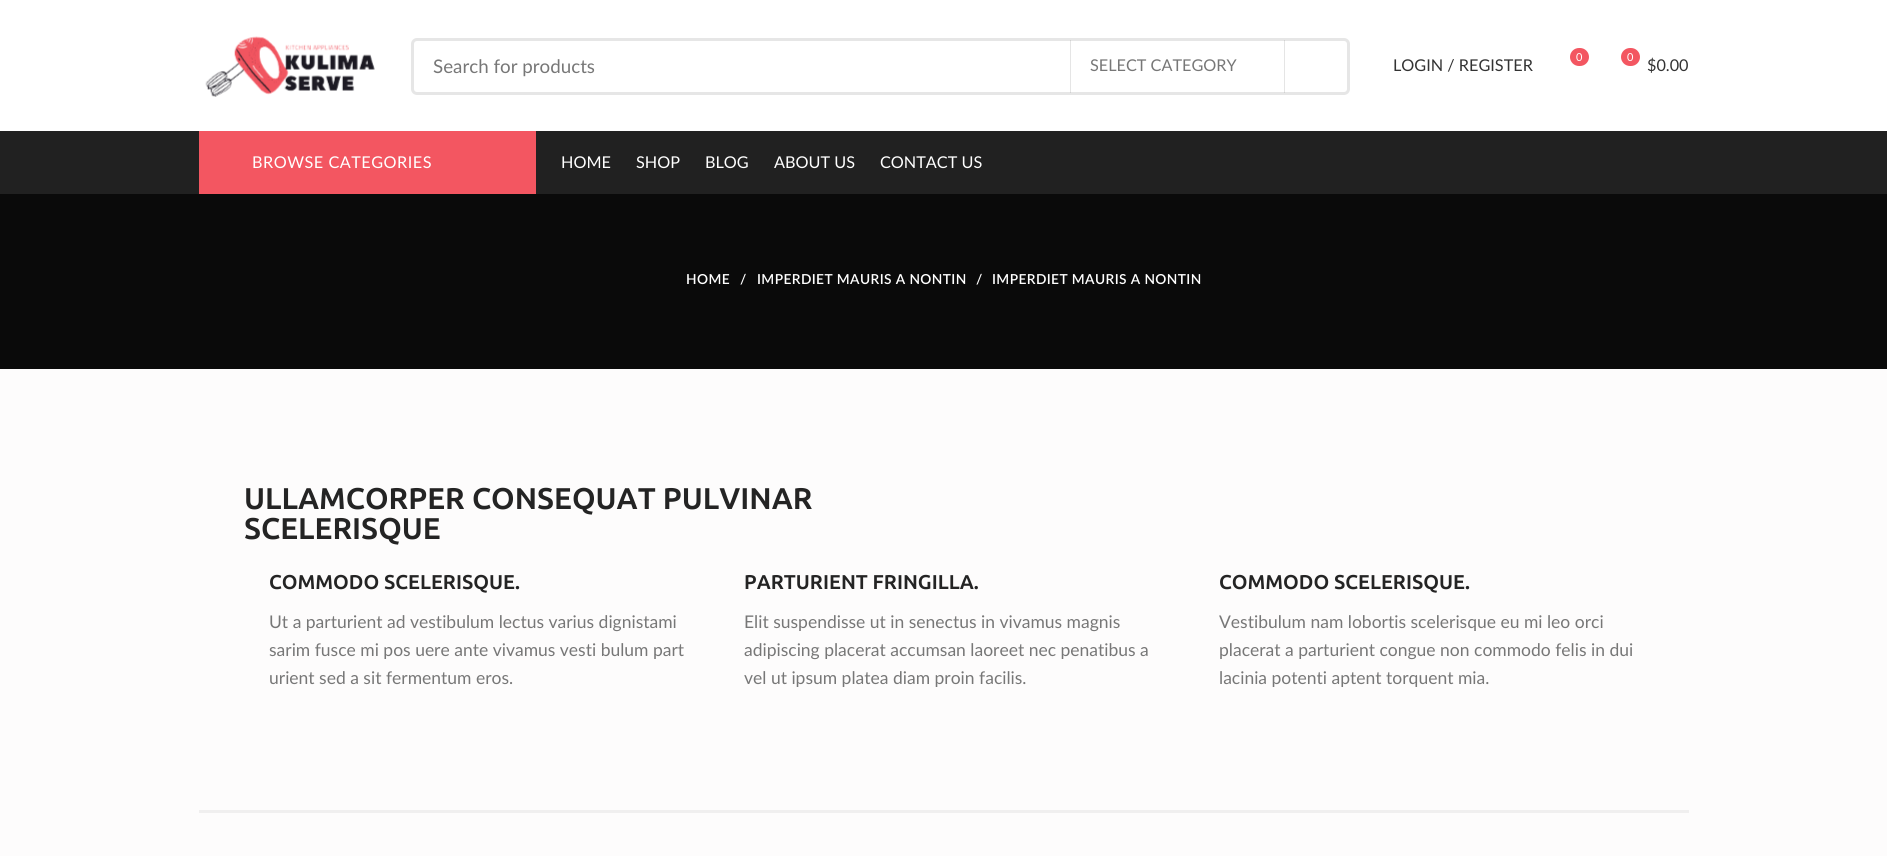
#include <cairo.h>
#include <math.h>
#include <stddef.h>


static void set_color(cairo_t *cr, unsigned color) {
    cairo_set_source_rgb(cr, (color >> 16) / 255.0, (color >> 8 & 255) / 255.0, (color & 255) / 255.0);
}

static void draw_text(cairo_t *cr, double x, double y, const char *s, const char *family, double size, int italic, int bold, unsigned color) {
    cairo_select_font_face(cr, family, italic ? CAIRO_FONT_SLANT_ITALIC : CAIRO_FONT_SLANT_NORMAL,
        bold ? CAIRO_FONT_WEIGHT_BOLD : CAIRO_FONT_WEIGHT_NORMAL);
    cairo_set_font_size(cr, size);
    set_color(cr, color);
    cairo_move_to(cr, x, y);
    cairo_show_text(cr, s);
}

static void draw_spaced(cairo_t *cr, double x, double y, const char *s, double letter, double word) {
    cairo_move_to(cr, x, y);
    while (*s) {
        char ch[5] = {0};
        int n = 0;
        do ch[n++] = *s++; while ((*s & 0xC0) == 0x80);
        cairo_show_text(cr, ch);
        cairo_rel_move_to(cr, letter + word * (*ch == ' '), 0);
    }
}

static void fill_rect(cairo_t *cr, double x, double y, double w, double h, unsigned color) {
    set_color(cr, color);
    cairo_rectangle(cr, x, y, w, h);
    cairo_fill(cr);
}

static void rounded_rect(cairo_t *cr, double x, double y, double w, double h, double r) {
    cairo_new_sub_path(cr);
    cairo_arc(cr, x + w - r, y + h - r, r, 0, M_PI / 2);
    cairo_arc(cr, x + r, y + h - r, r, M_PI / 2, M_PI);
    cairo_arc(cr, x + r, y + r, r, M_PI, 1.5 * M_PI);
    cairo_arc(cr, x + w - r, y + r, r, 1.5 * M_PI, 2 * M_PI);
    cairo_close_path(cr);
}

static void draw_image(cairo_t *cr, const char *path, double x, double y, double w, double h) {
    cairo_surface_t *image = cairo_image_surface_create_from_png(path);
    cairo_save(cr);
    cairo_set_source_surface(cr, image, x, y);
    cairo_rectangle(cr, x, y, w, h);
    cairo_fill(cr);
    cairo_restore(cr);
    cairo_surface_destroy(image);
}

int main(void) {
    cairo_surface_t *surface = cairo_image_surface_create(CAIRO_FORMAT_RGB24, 1887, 856);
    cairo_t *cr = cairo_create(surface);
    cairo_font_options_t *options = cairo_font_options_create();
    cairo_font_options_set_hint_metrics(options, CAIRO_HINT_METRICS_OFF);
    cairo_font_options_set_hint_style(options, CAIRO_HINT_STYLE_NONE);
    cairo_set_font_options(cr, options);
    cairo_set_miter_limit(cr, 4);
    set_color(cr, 0xFFFFFF);
    cairo_paint(cr);
    draw_image(cr, "assets/img1.png", 205, 36, 170, 61);
    rounded_rect(cr, 412.5, 39.5, 936, 54, 4.5);
    set_color(cr, 0xE6E6E6);
    cairo_set_line_width(cr, 3);
    cairo_stroke(cr);
    draw_text(cr, 433, 73, "Search for products", "Lato", 18.75, 0, 0, 0x777777);
    cairo_set_source_rgba(cr, 0.506, 0.506, 0.506, 0.2);
    cairo_rectangle(cr, 1284, 40, 1, 53);
    cairo_fill(cr);
    cairo_rectangle(cr, 1070, 40, 1, 53);
    cairo_fill(cr);
    draw_text(cr, 1090, 71, "SELECT CATEGORY", "Lato", 16.25, 0, 0, 0x777777);
    draw_text(cr, 1393, 71, "LOGIN / REGISTER", "Lato", 16.25, 0, 0, 0x333333);
    set_color(cr, 0xF35661);
    rounded_rect(cr, 1570, 48, 19, 18, 9);
    cairo_fill(cr);
    draw_text(cr, 1576, 61, "0", "Lato", 11, 0, 0, 0xFFFFFF);
    set_color(cr, 0xF35661);
    rounded_rect(cr, 1621, 48, 19, 18, 9);
    cairo_fill(cr);
    draw_text(cr, 1627, 61, "0", "Lato", 11, 0, 0, 0xFFFFFF);
    draw_text(cr, 1647, 71, "$0.00", "Lato", 16.25, 0, 0, 0x333333);
    fill_rect(cr, 0, 131, 1887, 63, 0x212121);
    fill_rect(cr, 199, 131, 337, 63, 0xF35661);
    set_color(cr, 0xFFFFFF);
    draw_spaced(cr, 252, 168, "BROWSE CATEGORIES", 0.5, 0);
    draw_text(cr, 561, 168, "HOME", "Lato", 16.25, 0, 0, 0xFFFFFF);
    draw_text(cr, 636, 168, "SHOP", "Lato", 16.25, 0, 0, 0xFFFFFF);
    draw_text(cr, 705, 168, "BLOG", "Lato", 16.25, 0, 0, 0xFFFFFF);
    draw_text(cr, 774, 168, "ABOUT US", "Lato", 16.25, 0, 0, 0xFFFFFF);
    draw_text(cr, 880, 168, "CONTACT US", "Lato", 16.25, 0, 0, 0xFFFFFF);
    fill_rect(cr, 0, 369, 1887, 487, 0xFDFCFC);
    fill_rect(cr, 0, 194, 1887, 175, 0x0A0A0A);
    cairo_select_font_face(cr, "Lato SemiBold", CAIRO_FONT_SLANT_NORMAL, CAIRO_FONT_WEIGHT_NORMAL);
    cairo_set_font_size(cr, 13.75);
    set_color(cr, 0xFFFFFF);
    draw_spaced(cr, 686, 284, "HOME", 0.4, 0);
    draw_spaced(cr, 740, 284, "/", 0.4, 0);
    draw_spaced(cr, 757, 284, "IMPERDIET MAURIS A NONTIN", 0.4, 0);
    draw_spaced(cr, 976, 284, "/", 0.4, 0);
    draw_spaced(cr, 992, 284, "IMPERDIET MAURIS A NONTIN", 0.4, 0);
    draw_text(cr, 244, 509, "ULLAMCORPER CONSEQUAT PULVINAR", "Ubuntu", 30, 0, 1, 0x242424);
    draw_text(cr, 244, 539, "SCELERISQUE", "Ubuntu", 30, 0, 1, 0x242424);
    draw_text(cr, 269, 589, "COMMODO SCELERISQUE.", "Ubuntu", 20, 0, 1, 0x242424);
    draw_text(cr, 269, 628, "Ut a parturient ad vestibulum lectus varius dignistami", "Lato", 17.5, 0, 0, 0x777777);
    draw_text(cr, 269, 656, "sarim fusce mi pos uere ante vivamus vesti bulum part", "Lato", 17.5, 0, 0, 0x777777);
    draw_text(cr, 269, 684, "urient sed a sit fermentum eros.", "Lato", 17.5, 0, 0, 0x777777);
    draw_text(cr, 744, 589, "PARTURIENT FRINGILLA.", "Ubuntu", 20, 0, 1, 0x242424);
    draw_text(cr, 744, 628, "Elit suspendisse ut in senectus in vivamus magnis", "Lato", 17.5, 0, 0, 0x777777);
    draw_text(cr, 744, 656, "adipiscing placerat accumsan laoreet nec penatibus a", "Lato", 17.5, 0, 0, 0x777777);
    draw_text(cr, 744, 684, "vel ut ipsum platea diam proin facilis.", "Lato", 17.5, 0, 0, 0x777777);
    draw_text(cr, 1219, 589, "COMMODO SCELERISQUE.", "Ubuntu", 20, 0, 1, 0x242424);
    draw_text(cr, 1219, 628, "Vestibulum nam lobortis scelerisque eu mi leo orci", "Lato", 17.5, 0, 0, 0x777777);
    draw_text(cr, 1219, 656, "placerat a parturient congue non commodo felis in dui", "Lato", 17.5, 0, 0, 0x777777);
    draw_text(cr, 1219, 684, "lacinia potenti aptent torquent mia.", "Lato", 17.5, 0, 0, 0x777777);
    fill_rect(cr, 199, 810, 1490, 3, 0xF0EFEF);
    cairo_surface_write_to_png(surface, "output.png");
    cairo_font_options_destroy(options);
    cairo_destroy(cr);
    cairo_surface_destroy(surface);
    return 0;
}
